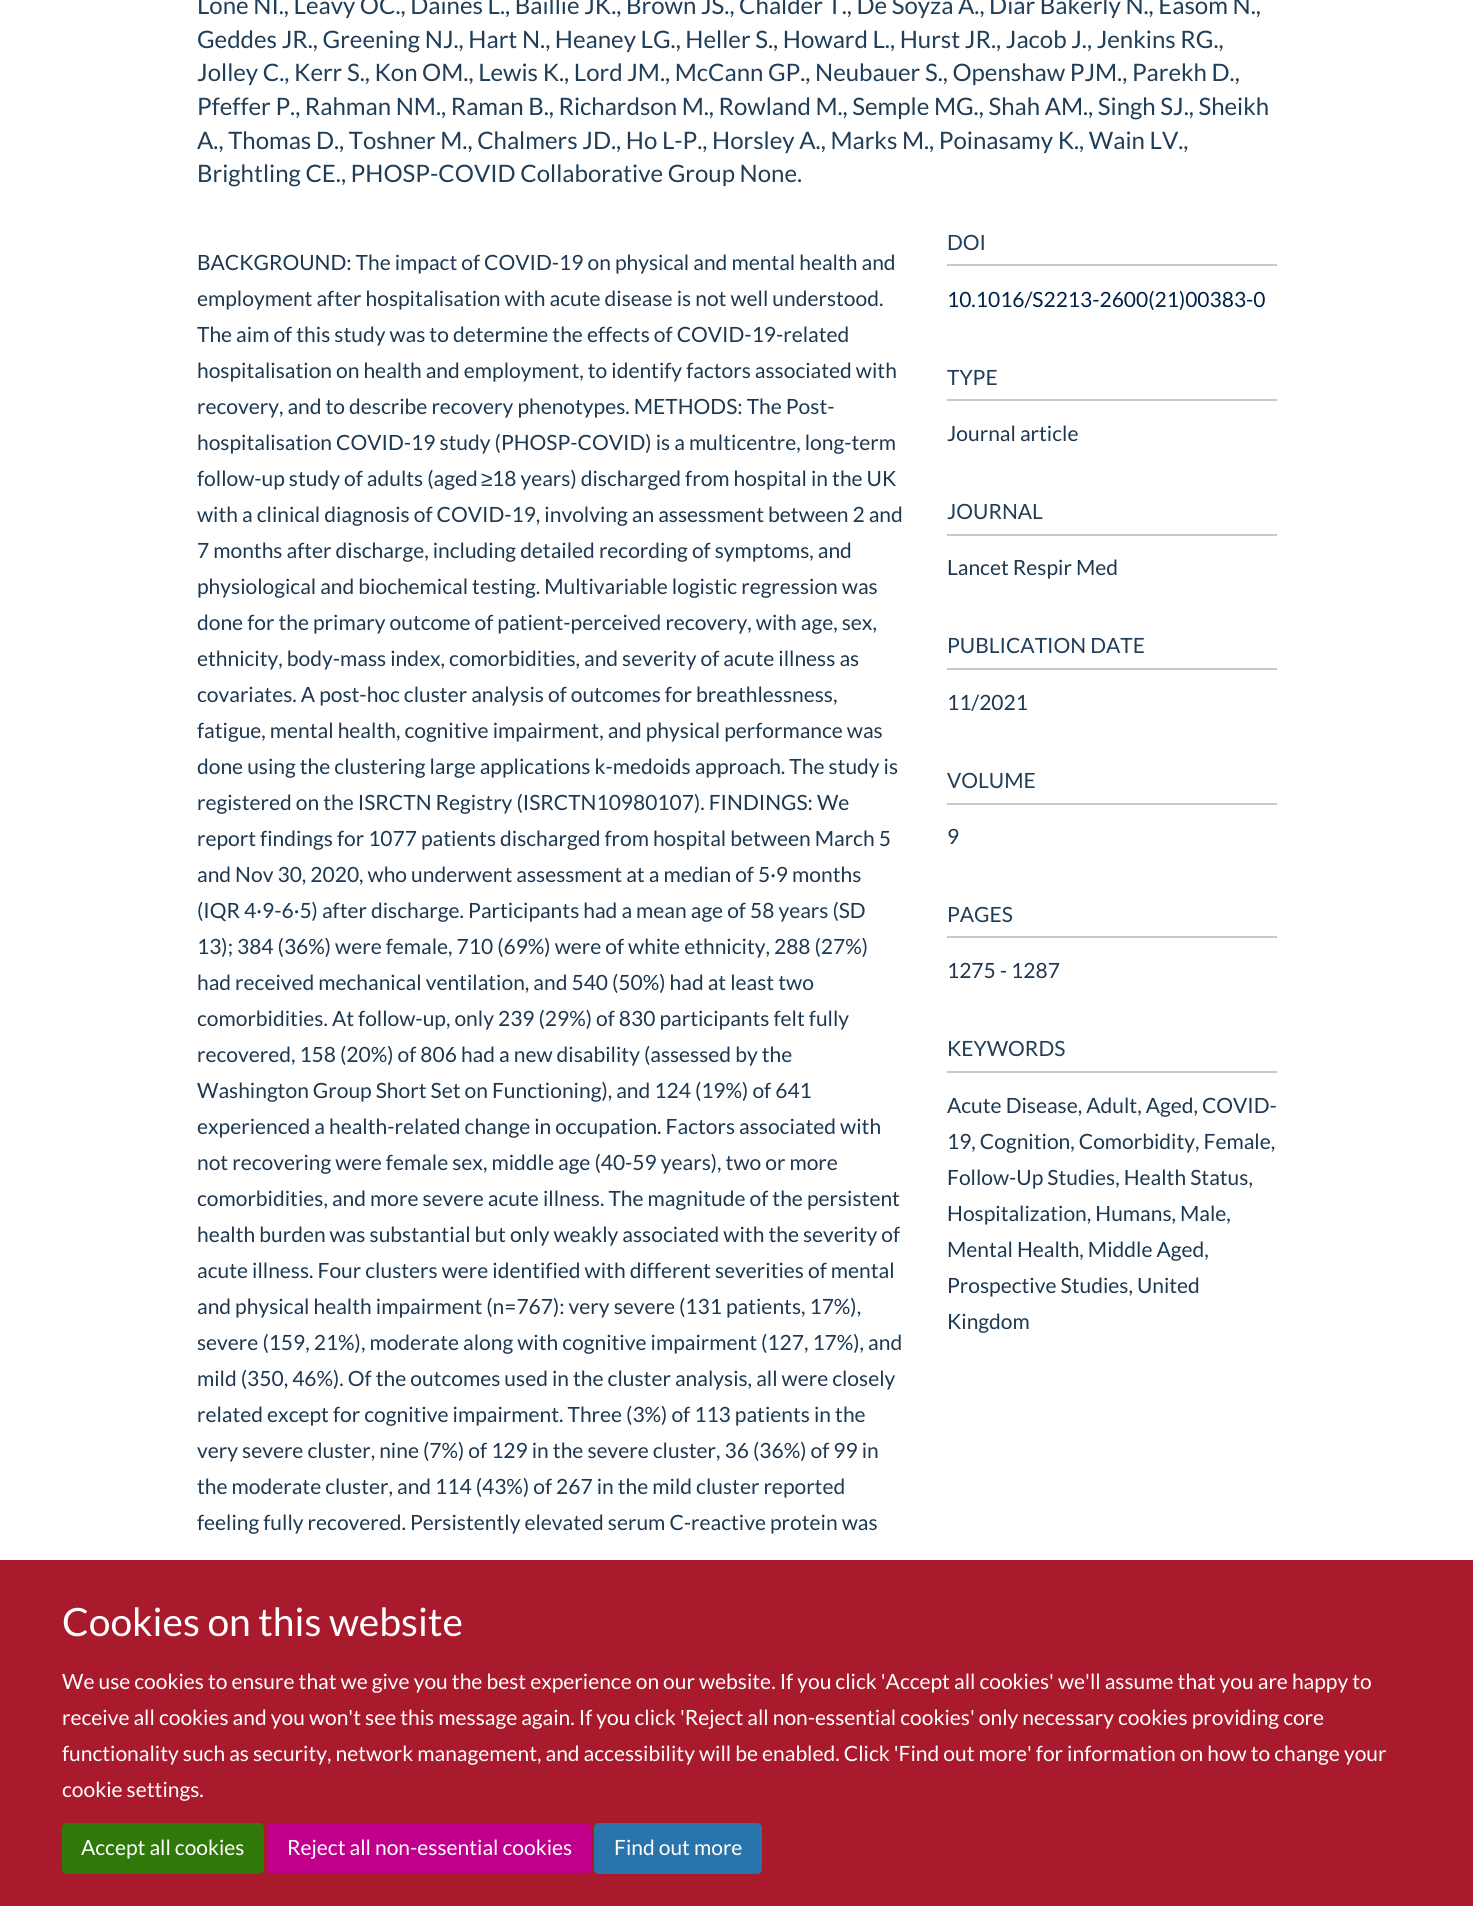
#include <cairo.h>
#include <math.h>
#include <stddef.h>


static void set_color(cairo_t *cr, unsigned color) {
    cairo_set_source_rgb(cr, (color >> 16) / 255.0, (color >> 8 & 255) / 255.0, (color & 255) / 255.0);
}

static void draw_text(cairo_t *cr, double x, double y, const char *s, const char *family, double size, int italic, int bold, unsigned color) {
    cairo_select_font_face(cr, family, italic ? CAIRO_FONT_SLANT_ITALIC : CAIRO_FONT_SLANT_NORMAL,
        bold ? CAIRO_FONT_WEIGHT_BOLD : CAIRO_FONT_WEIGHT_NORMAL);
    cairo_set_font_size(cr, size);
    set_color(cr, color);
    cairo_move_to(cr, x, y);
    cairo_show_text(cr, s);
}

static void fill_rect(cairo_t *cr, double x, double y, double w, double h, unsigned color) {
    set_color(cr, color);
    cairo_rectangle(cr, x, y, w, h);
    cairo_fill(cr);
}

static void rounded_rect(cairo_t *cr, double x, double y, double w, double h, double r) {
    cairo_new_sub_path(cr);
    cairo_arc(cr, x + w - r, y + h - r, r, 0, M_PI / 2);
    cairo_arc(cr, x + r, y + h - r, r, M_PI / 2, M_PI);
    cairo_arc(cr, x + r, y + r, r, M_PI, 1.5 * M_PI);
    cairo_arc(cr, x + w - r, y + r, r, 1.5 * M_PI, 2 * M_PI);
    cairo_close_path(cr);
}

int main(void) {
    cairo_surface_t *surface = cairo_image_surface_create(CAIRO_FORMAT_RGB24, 1473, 1906);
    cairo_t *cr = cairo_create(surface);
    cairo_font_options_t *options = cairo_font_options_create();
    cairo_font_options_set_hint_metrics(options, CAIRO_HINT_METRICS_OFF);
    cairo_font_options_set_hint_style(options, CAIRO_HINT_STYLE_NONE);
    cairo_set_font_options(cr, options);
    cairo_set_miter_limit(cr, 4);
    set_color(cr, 0xFFFFFF);
    cairo_paint(cr);
    draw_text(cr, 197, 14, "Lone NI., Leavy OC., Daines L., Baillie JK., Brown JS., Chalder T., De Soyza A., Diar Bakerly N., Easom N.,", "Lato", 24, 0, 0, 0x203E58);
    draw_text(cr, 197, 48, "Geddes JR., Greening NJ., Hart N., Heaney LG., Heller S., Howard L., Hurst JR., Jacob J., Jenkins RG.,", "Lato", 24, 0, 0, 0x203E58);
    draw_text(cr, 197, 81, "Jolley C., Kerr S., Kon OM., Lewis K., Lord JM., McCann GP., Neubauer S., Openshaw PJM., Parekh D.,", "Lato", 24, 0, 0, 0x203E58);
    draw_text(cr, 197, 115, "Pfeffer P., Rahman NM., Raman B., Richardson M., Rowland M., Semple MG., Shah AM., Singh SJ., Sheikh", "Lato", 24, 0, 0, 0x203E58);
    draw_text(cr, 197, 149, "A., Thomas D., Toshner M., Chalmers JD., Ho L-P., Horsley A., Marks M., Poinasamy K., Wain LV.,", "Lato", 24, 0, 0, 0x203E58);
    draw_text(cr, 197, 182, "Brightling CE., PHOSP-COVID Collaborative Group None.", "Lato", 24, 0, 0, 0x203E58);
    draw_text(cr, 197, 270, "BACKGROUND: The impact of COVID-19 on physical and mental health and", "Lato", 21, 0, 0, 0x1D3850);
    draw_text(cr, 197, 306, "employment after hospitalisation with acute disease is not well understood.", "Lato", 21, 0, 0, 0x1D3850);
    draw_text(cr, 197, 342, "The aim of this study was to determine the effects of COVID-19-related", "Lato", 21, 0, 0, 0x1D3850);
    draw_text(cr, 197, 378, "hospitalisation on health and employment, to identify factors associated with", "Lato", 21, 0, 0, 0x1D3850);
    draw_text(cr, 197, 414, "recovery, and to describe recovery phenotypes. METHODS: The Post-", "Lato", 21, 0, 0, 0x1D3850);
    draw_text(cr, 197, 450, "hospitalisation COVID-19 study (PHOSP-COVID) is a multicentre, long-term", "Lato", 21, 0, 0, 0x1D3850);
    draw_text(cr, 197, 486, "follow-up study of adults (aged", "Lato", 21, 0, 0, 0x1D3850);
    draw_text(cr, 481, 486, "≥", "Liberation Sans", 21, 0, 0, 0x1D3850);
    draw_text(cr, 492, 486, "18 years) discharged from hospital in the UK", "Lato", 21, 0, 0, 0x1D3850);
    draw_text(cr, 197, 522, "with a clinical diagnosis of COVID-19, involving an assessment between 2 and", "Lato", 21, 0, 0, 0x1D3850);
    draw_text(cr, 197, 558, "7 months after discharge, including detailed recording of symptoms, and", "Lato", 21, 0, 0, 0x1D3850);
    draw_text(cr, 197, 594, "physiological and biochemical testing. Multivariable logistic regression was", "Lato", 21, 0, 0, 0x1D3850);
    draw_text(cr, 197, 630, "done for the primary outcome of patient-perceived recovery, with age, sex,", "Lato", 21, 0, 0, 0x1D3850);
    draw_text(cr, 197, 666, "ethnicity, body-mass index, comorbidities, and severity of acute illness as", "Lato", 21, 0, 0, 0x1D3850);
    draw_text(cr, 197, 702, "covariates. A post-hoc cluster analysis of outcomes for breathlessness,", "Lato", 21, 0, 0, 0x1D3850);
    draw_text(cr, 197, 738, "fatigue, mental health, cognitive impairment, and physical performance was", "Lato", 21, 0, 0, 0x1D3850);
    draw_text(cr, 197, 774, "done using the clustering large applications k-medoids approach. The study is", "Lato", 21, 0, 0, 0x1D3850);
    draw_text(cr, 197, 810, "registered on the ISRCTN Registry (ISRCTN10980107). FINDINGS: We", "Lato", 21, 0, 0, 0x1D3850);
    draw_text(cr, 197, 846, "report findings for 1077 patients discharged from hospital between March 5", "Lato", 21, 0, 0, 0x1D3850);
    draw_text(cr, 197, 882, "and Nov 30, 2020, who underwent assessment at a median of 5·9 months", "Lato", 21, 0, 0, 0x1D3850);
    draw_text(cr, 197, 918, "(IQR 4·9-6·5) after discharge. Participants had a mean age of 58 years (SD", "Lato", 21, 0, 0, 0x1D3850);
    draw_text(cr, 197, 954, "13); 384 (36%) were female, 710 (69%) were of white ethnicity, 288 (27%)", "Lato", 21, 0, 0, 0x1D3850);
    draw_text(cr, 197, 990, "had received mechanical ventilation, and 540 (50%) had at least two", "Lato", 21, 0, 0, 0x1D3850);
    draw_text(cr, 197, 1026, "comorbidities. At follow-up, only 239 (29%) of 830 participants felt fully", "Lato", 21, 0, 0, 0x1D3850);
    draw_text(cr, 197, 1062, "recovered, 158 (20%) of 806 had a new disability (assessed by the", "Lato", 21, 0, 0, 0x1D3850);
    draw_text(cr, 197, 1098, "Washington Group Short Set on Functioning), and 124 (19%) of 641", "Lato", 21, 0, 0, 0x1D3850);
    draw_text(cr, 197, 1134, "experienced a health-related change in occupation. Factors associated with", "Lato", 21, 0, 0, 0x1D3850);
    draw_text(cr, 197, 1170, "not recovering were female sex, middle age (40-59 years), two or more", "Lato", 21, 0, 0, 0x1D3850);
    draw_text(cr, 197, 1206, "comorbidities, and more severe acute illness. The magnitude of the persistent", "Lato", 21, 0, 0, 0x1D3850);
    draw_text(cr, 197, 1242, "health burden was substantial but only weakly associated with the severity of", "Lato", 21, 0, 0, 0x1D3850);
    draw_text(cr, 197, 1278, "acute illness. Four clusters were identified with different severities of mental", "Lato", 21, 0, 0, 0x1D3850);
    draw_text(cr, 197, 1314, "and physical health impairment (n=767): very severe (131 patients, 17%),", "Lato", 21, 0, 0, 0x1D3850);
    draw_text(cr, 197, 1350, "severe (159, 21%), moderate along with cognitive impairment (127, 17%), and", "Lato", 21, 0, 0, 0x1D3850);
    draw_text(cr, 197, 1386, "mild (350, 46%). Of the outcomes used in the cluster analysis, all were closely", "Lato", 21, 0, 0, 0x1D3850);
    draw_text(cr, 197, 1422, "related except for cognitive impairment. Three (3%) of 113 patients in the", "Lato", 21, 0, 0, 0x1D3850);
    draw_text(cr, 197, 1458, "very severe cluster, nine (7%) of 129 in the severe cluster, 36 (36%) of 99 in", "Lato", 21, 0, 0, 0x1D3850);
    draw_text(cr, 197, 1494, "the moderate cluster, and 114 (43%) of 267 in the mild cluster reported", "Lato", 21, 0, 0, 0x1D3850);
    draw_text(cr, 197, 1530, "feeling fully recovered. Persistently elevated serum C-reactive protein was", "Lato", 21, 0, 0, 0x1D3850);
    fill_rect(cr, 947, 264, 330, 2, 0xC6CACF);
    draw_text(cr, 947, 250, "DOI", "Lato", 21, 0, 0, 0x203E58);
    draw_text(cr, 947, 307, "10.1016/S2213-2600(21)00383-0", "Lato", 21, 0, 0, 0x002147);
    fill_rect(cr, 947, 399, 330, 2, 0xC6CACF);
    draw_text(cr, 947, 385, "TYPE", "Lato", 21, 0, 0, 0x203E58);
    draw_text(cr, 947, 441, "Journal article", "Lato", 21, 0, 0, 0x1D3850);
    fill_rect(cr, 947, 534, 330, 2, 0xC6CACF);
    draw_text(cr, 947, 519, "JOURNAL", "Lato", 21, 0, 0, 0x203E58);
    draw_text(cr, 947, 575, "Lancet Respir Med", "Lato", 21, 0, 0, 0x1D3850);
    fill_rect(cr, 947, 668, 330, 2, 0xC6CACF);
    draw_text(cr, 947, 653, "PUBLICATION DATE", "Lato", 21, 0, 0, 0x203E58);
    draw_text(cr, 947, 710, "11/2021", "Lato", 21, 0, 0, 0x1D3850);
    fill_rect(cr, 947, 803, 330, 2, 0xC6CACF);
    draw_text(cr, 947, 788, "VOLUME", "Lato", 21, 0, 0, 0x203E58);
    draw_text(cr, 947, 844, "9", "Lato", 21, 0, 0, 0x1D3850);
    fill_rect(cr, 947, 936, 330, 2, 0xC6CACF);
    draw_text(cr, 947, 922, "PAGES", "Lato", 21, 0, 0, 0x203E58);
    draw_text(cr, 947, 978, "1275 - 1287", "Lato", 21, 0, 0, 0x1D3850);
    fill_rect(cr, 947, 1071, 330, 2, 0xC6CACF);
    draw_text(cr, 947, 1056, "KEYWORDS", "Lato", 21, 0, 0, 0x203E58);
    draw_text(cr, 947, 1113, "Acute Disease, Adult, Aged, COVID-", "Lato", 21, 0, 0, 0x1D3850);
    draw_text(cr, 947, 1149, "19, Cognition, Comorbidity, Female,", "Lato", 21, 0, 0, 0x1D3850);
    draw_text(cr, 947, 1185, "Follow-Up Studies, Health Status,", "Lato", 21, 0, 0, 0x1D3850);
    draw_text(cr, 947, 1221, "Hospitalization, Humans, Male,", "Lato", 21, 0, 0, 0x1D3850);
    draw_text(cr, 947, 1257, "Mental Health, Middle Aged,", "Lato", 21, 0, 0, 0x1D3850);
    draw_text(cr, 947, 1293, "Prospective Studies, United", "Lato", 21, 0, 0, 0x1D3850);
    draw_text(cr, 947, 1329, "Kingdom", "Lato", 21, 0, 0, 0x1D3850);
    fill_rect(cr, 0, 1560, 1473, 346, 0xAA1A2D);
    draw_text(cr, 62, 1636, "Cookies on this website", "Lato", 39, 0, 0, 0xFFFFFF);
    draw_text(cr, 62, 1689, "We use cookies to ensure that we give you the best experience on our website. If you click 'Accept all cookies' we'll assume that you are happy to", "Lato", 21, 0, 0, 0xFFFFFF);
    draw_text(cr, 62, 1725, "receive all cookies and you won't see this message again. If you click 'Reject all non-essential cookies' only necessary cookies providing core", "Lato", 21, 0, 0, 0xFFFFFF);
    draw_text(cr, 62, 1761, "functionality such as security, network management, and accessibility will be enabled. Click 'Find out more' for information on how to change your", "Lato", 21, 0, 0, 0xFFFFFF);
    draw_text(cr, 62, 1797, "cookie settings.", "Lato", 21, 0, 0, 0xFFFFFF);
    set_color(cr, 0x31780A);
    rounded_rect(cr, 63, 1824, 200, 49, 4);
    cairo_fill_preserve(cr);
    cairo_stroke(cr);
    draw_text(cr, 81, 1855, "Accept all cookies", "Lato", 21, 0, 0, 0xFFFFFF);
    set_color(cr, 0xC0008D);
    rounded_rect(cr, 268, 1824, 322, 49, 4);
    cairo_fill_preserve(cr);
    cairo_stroke(cr);
    draw_text(cr, 287, 1855, "Reject all non-essential cookies", "Lato", 21, 0, 0, 0xFFFFFF);
    set_color(cr, 0x2A74AC);
    rounded_rect(cr, 595, 1824, 166, 49, 4);
    cairo_fill_preserve(cr);
    cairo_stroke(cr);
    draw_text(cr, 614, 1855, "Find out more", "Lato", 21, 0, 0, 0xFFFFFF);
    cairo_surface_write_to_png(surface, "output.png");
    cairo_font_options_destroy(options);
    cairo_destroy(cr);
    cairo_surface_destroy(surface);
    return 0;
}
